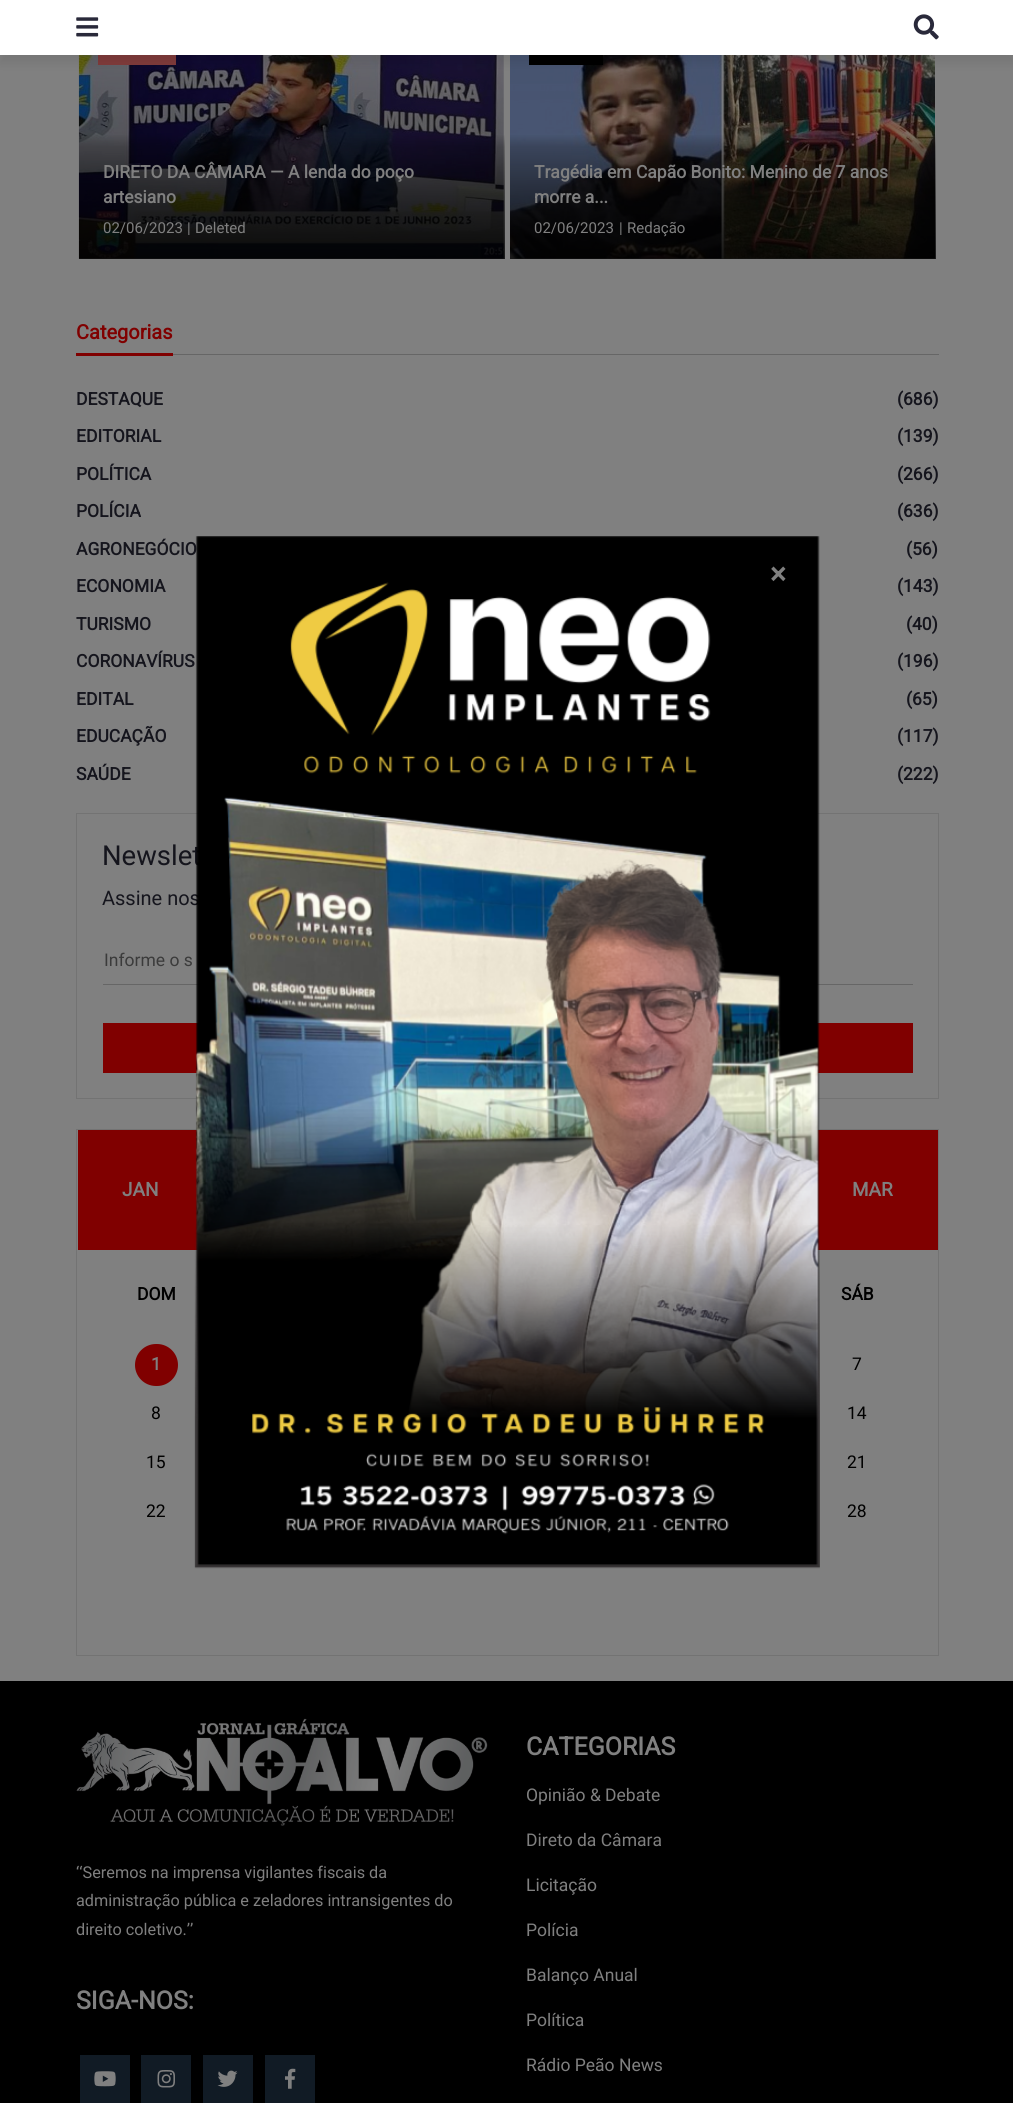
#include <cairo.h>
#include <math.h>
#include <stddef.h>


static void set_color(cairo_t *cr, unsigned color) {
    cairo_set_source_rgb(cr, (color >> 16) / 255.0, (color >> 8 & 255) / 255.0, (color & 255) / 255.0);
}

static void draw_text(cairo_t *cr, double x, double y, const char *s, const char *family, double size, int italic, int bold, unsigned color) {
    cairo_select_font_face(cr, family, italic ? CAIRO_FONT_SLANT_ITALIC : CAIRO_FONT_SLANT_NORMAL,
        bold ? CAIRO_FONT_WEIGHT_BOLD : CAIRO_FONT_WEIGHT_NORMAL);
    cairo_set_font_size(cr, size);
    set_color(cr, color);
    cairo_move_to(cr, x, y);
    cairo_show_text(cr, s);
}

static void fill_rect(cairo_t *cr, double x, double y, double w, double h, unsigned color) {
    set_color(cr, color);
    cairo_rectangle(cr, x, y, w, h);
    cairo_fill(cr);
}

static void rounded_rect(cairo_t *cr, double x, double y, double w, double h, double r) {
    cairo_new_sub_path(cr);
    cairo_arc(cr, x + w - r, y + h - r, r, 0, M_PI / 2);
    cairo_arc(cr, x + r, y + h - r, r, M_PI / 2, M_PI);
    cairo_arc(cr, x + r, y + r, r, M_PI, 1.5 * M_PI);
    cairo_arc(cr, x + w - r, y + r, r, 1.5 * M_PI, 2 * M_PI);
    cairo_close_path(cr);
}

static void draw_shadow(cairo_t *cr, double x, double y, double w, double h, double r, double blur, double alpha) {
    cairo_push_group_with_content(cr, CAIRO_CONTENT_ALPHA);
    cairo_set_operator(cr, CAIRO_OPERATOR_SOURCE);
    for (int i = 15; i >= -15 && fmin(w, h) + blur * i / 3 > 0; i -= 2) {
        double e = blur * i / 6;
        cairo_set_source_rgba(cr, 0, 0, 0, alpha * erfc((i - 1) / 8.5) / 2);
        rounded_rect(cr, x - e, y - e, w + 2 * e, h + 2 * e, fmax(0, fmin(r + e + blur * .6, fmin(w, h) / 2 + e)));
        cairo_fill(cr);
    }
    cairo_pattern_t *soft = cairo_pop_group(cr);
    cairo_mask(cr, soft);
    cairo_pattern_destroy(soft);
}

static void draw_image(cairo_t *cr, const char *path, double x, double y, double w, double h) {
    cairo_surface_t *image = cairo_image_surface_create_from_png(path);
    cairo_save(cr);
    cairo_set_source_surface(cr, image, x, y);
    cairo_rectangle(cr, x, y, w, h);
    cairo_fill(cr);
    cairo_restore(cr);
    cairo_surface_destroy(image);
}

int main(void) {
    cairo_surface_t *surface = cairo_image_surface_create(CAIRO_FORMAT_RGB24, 1013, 2103);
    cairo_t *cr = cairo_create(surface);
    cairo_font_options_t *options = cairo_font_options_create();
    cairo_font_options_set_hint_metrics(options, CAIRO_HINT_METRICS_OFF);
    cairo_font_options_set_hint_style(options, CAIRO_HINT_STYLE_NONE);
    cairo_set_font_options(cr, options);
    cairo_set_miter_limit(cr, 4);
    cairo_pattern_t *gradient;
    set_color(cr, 0x808080);
    cairo_paint(cr);
    draw_image(cr, "assets/img3.png", 78, 55, 426, 204);
    fill_rect(cr, 98, 55, 78, 10, 0x803B3B);
    draw_image(cr, "assets/img4.png", 510, 55, 425, 204);
    fill_rect(cr, 529, 55, 74, 10, 0x000000);
    set_color(cr, 0x000000);
    draw_shadow(cr, 0, 8, 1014, 55, 0, 5, 0.08);
    fill_rect(cr, 0, 0, 1013, 55, 0xFFFFFF);
    draw_image(cr, "assets/img1.png", 76, 17, 23, 20);
    draw_image(cr, "assets/img2.png", 913, 14, 26, 26);
    gradient = cairo_pattern_create_linear(292, 259, 292, 134);
    cairo_pattern_add_color_stop_rgba(gradient, 0, 0, 0, 0, 0.8);
    cairo_pattern_add_color_stop_rgba(gradient, 0.5, 0, 0, 0, 0.5);
    cairo_pattern_add_color_stop_rgba(gradient, 0.9, 0, 0, 0, 0.2);
    cairo_pattern_add_color_stop_rgba(gradient, 1, 0, 0, 0, 0);
    cairo_set_source(cr, gradient);
    cairo_pattern_destroy(gradient);
    cairo_rectangle(cr, 79, 135, 426, 124);
    cairo_fill(cr);
    draw_text(cr, 103, 178, "DIRETO DA CÂMARA — A lenda do poço", "Roboto", 17.5, 0, 1, 0x808080);
    draw_text(cr, 103, 203, "artesiano", "Roboto", 17.5, 0, 1, 0x808080);
    draw_text(cr, 103, 233, "02/06/2023", "Roboto", 15, 0, 0, 0x808080);
    draw_text(cr, 187, 233, "|", "Roboto", 15, 0, 0, 0x808080);
    draw_text(cr, 195, 233, "Deleted", "Roboto", 15, 0, 0, 0x808080);
    gradient = cairo_pattern_create_linear(723, 259, 723, 134);
    cairo_pattern_add_color_stop_rgba(gradient, 0, 0, 0, 0, 0.8);
    cairo_pattern_add_color_stop_rgba(gradient, 0.5, 0, 0, 0, 0.5);
    cairo_pattern_add_color_stop_rgba(gradient, 0.9, 0, 0, 0, 0.2);
    cairo_pattern_add_color_stop_rgba(gradient, 1, 0, 0, 0, 0);
    cairo_set_source(cr, gradient);
    cairo_pattern_destroy(gradient);
    cairo_rectangle(cr, 510, 135, 426, 124);
    cairo_fill(cr);
    draw_text(cr, 534, 178, "Tragédia em Capão Bonito: Menino de 7 anos", "Roboto", 17.5, 0, 1, 0x808080);
    draw_text(cr, 534, 203, "morre a...", "Roboto", 17.5, 0, 1, 0x808080);
    draw_text(cr, 534, 233, "02/06/2023", "Roboto", 15, 0, 0, 0x808080);
    draw_text(cr, 619, 233, "|", "Roboto", 15, 0, 0, 0x808080);
    draw_text(cr, 627, 233, "Redação", "Roboto", 15, 0, 0, 0x808080);
    fill_rect(cr, 173, 354, 766, 1, 0x666666);
    draw_text(cr, 76, 339, "Categorias", "Roboto", 20, 0, 1, 0x800000);
    fill_rect(cr, 76, 353, 97, 3, 0x800000);
    draw_text(cr, 76, 405, "DESTAQUE", "Roboto", 17.5, 0, 1, 0x15151D);
    draw_text(cr, 897, 405, "(686)", "Roboto", 17.5, 0, 1, 0x15151D);
    draw_text(cr, 76, 442, "EDITORIAL", "Roboto", 17.5, 0, 1, 0x15151D);
    draw_text(cr, 897, 442, "(139)", "Roboto", 17.5, 0, 1, 0x15151D);
    draw_text(cr, 76, 480, "POLÍTICA", "Roboto", 17.5, 0, 1, 0x15151D);
    draw_text(cr, 897, 480, "(266)", "Roboto", 17.5, 0, 1, 0x15151D);
    draw_text(cr, 76, 517, "POLÍCIA", "Roboto", 17.5, 0, 1, 0x15151D);
    draw_text(cr, 897, 517, "(636)", "Roboto", 17.5, 0, 1, 0x15151D);
    draw_text(cr, 76, 555, "AGRONEGÓCIO", "Roboto", 17.5, 0, 1, 0x15151D);
    draw_text(cr, 906, 555, "(56)", "Roboto", 17.5, 0, 1, 0x15151D);
    draw_text(cr, 76, 592, "ECONOMIA", "Roboto", 17.5, 0, 1, 0x15151D);
    draw_text(cr, 897, 592, "(143)", "Roboto", 17.5, 0, 1, 0x15151D);
    draw_text(cr, 76, 630, "TURISMO", "Roboto", 17.5, 0, 1, 0x15151D);
    draw_text(cr, 906, 630, "(40)", "Roboto", 17.5, 0, 1, 0x15151D);
    draw_text(cr, 76, 667, "CORONAVÍRUS", "Roboto", 17.5, 0, 1, 0x15151D);
    draw_text(cr, 897, 667, "(196)", "Roboto", 17.5, 0, 1, 0x15151D);
    draw_text(cr, 76, 705, "EDITAL", "Roboto", 17.5, 0, 1, 0x15151D);
    draw_text(cr, 906, 705, "(65)", "Roboto", 17.5, 0, 1, 0x15151D);
    draw_text(cr, 76, 742, "EDUCAÇÃO", "Roboto", 17.5, 0, 1, 0x15151D);
    draw_text(cr, 897, 742, "(117)", "Roboto", 17.5, 0, 1, 0x15151D);
    draw_text(cr, 76, 780, "SAÚDE", "Roboto", 17.5, 0, 1, 0x15151D);
    draw_text(cr, 897, 780, "(222)", "Roboto", 17.5, 0, 1, 0x15151D);
    cairo_rectangle(cr, 76.5, 813.5, 862, 285);
    set_color(cr, 0x737373);
    cairo_set_line_width(cr, 1);
    cairo_stroke(cr);
    draw_text(cr, 102, 865, "Newslet", "Roboto", 27.5, 0, 0, 0x15151D);
    draw_text(cr, 102, 905, "Assine nos", "Roboto", 20, 0, 0, 0x15151D);
    fill_rect(cr, 103, 984, 810, 1, 0x666666);
    draw_text(cr, 104, 966, "Informe o s", "Roboto", 17.5, 0, 0, 0x3B3B3B);
    fill_rect(cr, 103, 1023, 810, 50, 0x800000);
    cairo_rectangle(cr, 76.5, 1129.5, 862, 526);
    set_color(cr, 0x737373);
    cairo_stroke(cr);
    fill_rect(cr, 78, 1130, 860, 120, 0x800000);
    draw_text(cr, 122, 1196, "JAN", "Roboto", 19, 0, 1, 0x808080);
    draw_text(cr, 852, 1196, "MAR", "Roboto", 19, 0, 1, 0x808080);
    draw_text(cr, 137, 1300, "DOM", "Roboto", 17.5, 0, 1, 0x000000);
    draw_text(cr, 841, 1300, "SÁB", "Roboto", 17.5, 0, 1, 0x000000);
    set_color(cr, 0x800000);
    rounded_rect(cr, 135, 1344, 43, 42, 21);
    cairo_fill(cr);
    draw_text(cr, 151, 1370, "1", "Roboto", 17.5, 0, 1, 0x808080);
    draw_text(cr, 852, 1370, "7", "Roboto", 17.5, 0, 0, 0x000000);
    draw_text(cr, 151, 1419, "8", "Roboto", 17.5, 0, 0, 0x000000);
    draw_text(cr, 847, 1419, "14", "Roboto", 17.5, 0, 0, 0x000000);
    draw_text(cr, 146, 1468, "15", "Roboto", 17.5, 0, 0, 0x000000);
    draw_text(cr, 847, 1468, "21", "Roboto", 17.5, 0, 0, 0x000000);
    draw_text(cr, 146, 1517, "22", "Roboto", 17.5, 0, 0, 0x000000);
    draw_text(cr, 847, 1517, "28", "Roboto", 17.5, 0, 0, 0x000000);
    draw_image(cr, "assets/img5.png", 194, 536, 626, 1033);
    draw_text(cr, 770, 584, "×", "Roboto", 30, 0, 1, 0x808080);
    fill_rect(cr, 0, 1681, 1013, 422, 0x000000);
    draw_image(cr, "assets/img6.png", 76, 1718, 412, 108);
    draw_text(cr, 76, 1878, "‘‘Seremos na imprensa vigilantes fiscais da", "Roboto", 16.25, 0, 0, 0x808080);
    draw_text(cr, 76, 1906, "administração pública e zeladores intransigentes do", "Roboto", 16.25, 0, 0, 0x808080);
    draw_text(cr, 76, 1935, "direito coletivo.’’", "Roboto", 16.25, 0, 0, 0x808080);
    draw_text(cr, 76, 2009, "SIGA-NOS:", "Roboto", 25, 0, 1, 0x808080);
    fill_rect(cr, 80, 2055, 50, 48, 0x111B25);
    draw_image(cr, "assets/img7.png", 94, 2071, 22, 16);
    fill_rect(cr, 141, 2055, 50, 48, 0x111B25);
    draw_image(cr, "assets/img8.png", 157, 2070, 18, 18);
    fill_rect(cr, 203, 2055, 50, 48, 0x111B25);
    draw_image(cr, "assets/img9.png", 217, 2070, 21, 17);
    fill_rect(cr, 265, 2055, 50, 48, 0x111B25);
    draw_image(cr, "assets/img10.png", 285, 2068, 11, 21);
    draw_text(cr, 526, 1755, "CATEGORIAS", "Roboto", 25, 0, 1, 0x808080);
    draw_text(cr, 526, 1801, "Opinião & Debate", "Roboto", 17.5, 0, 0, 0x808080);
    draw_text(cr, 526, 1846, "Direto da Câmara", "Roboto", 17.5, 0, 0, 0x808080);
    draw_text(cr, 526, 1891, "Licitação", "Roboto", 17.5, 0, 0, 0x808080);
    draw_text(cr, 526, 1936, "Polícia", "Roboto", 17.5, 0, 0, 0x808080);
    draw_text(cr, 526, 1981, "Balanço Anual", "Roboto", 17.5, 0, 0, 0x808080);
    draw_text(cr, 526, 2026, "Política", "Roboto", 17.5, 0, 0, 0x808080);
    draw_text(cr, 526, 2071, "Rádio Peão News", "Roboto", 17.5, 0, 0, 0x808080);
    cairo_surface_write_to_png(surface, "output.png");
    cairo_font_options_destroy(options);
    cairo_destroy(cr);
    cairo_surface_destroy(surface);
    return 0;
}
